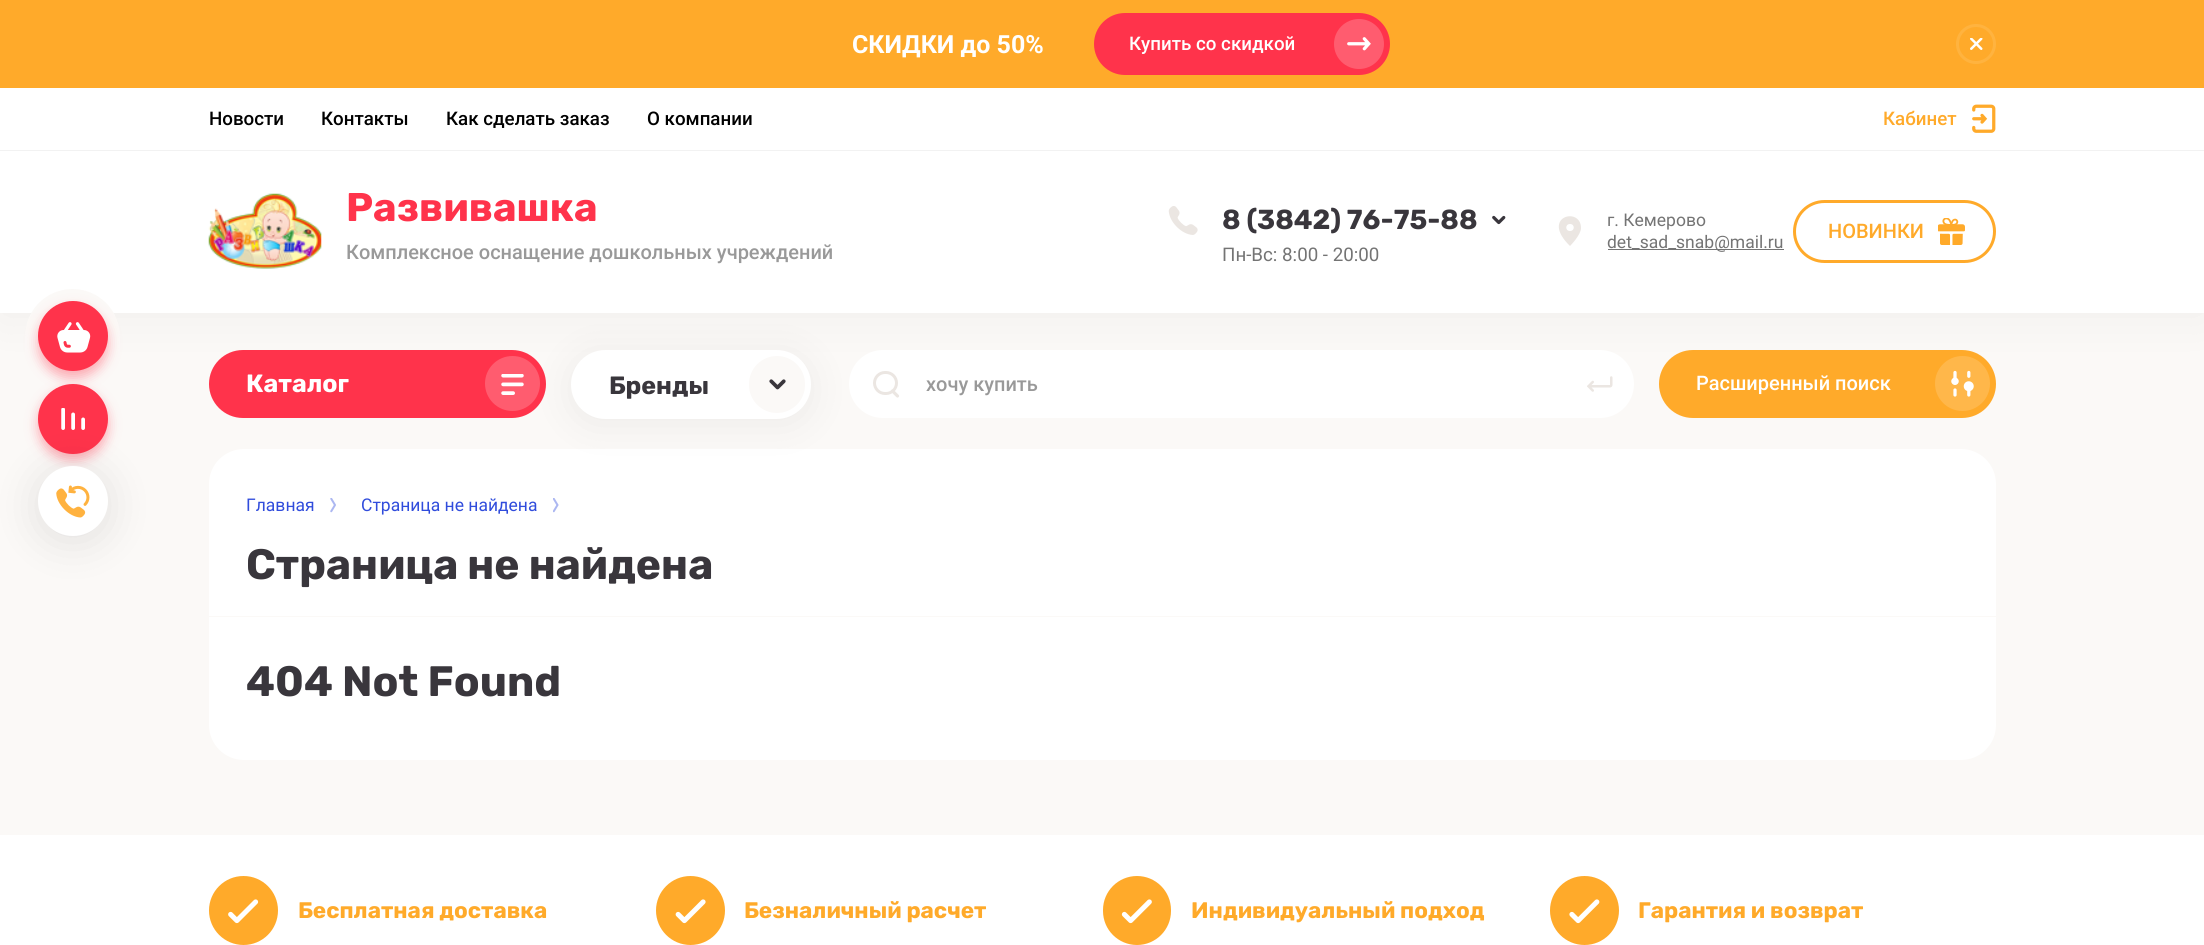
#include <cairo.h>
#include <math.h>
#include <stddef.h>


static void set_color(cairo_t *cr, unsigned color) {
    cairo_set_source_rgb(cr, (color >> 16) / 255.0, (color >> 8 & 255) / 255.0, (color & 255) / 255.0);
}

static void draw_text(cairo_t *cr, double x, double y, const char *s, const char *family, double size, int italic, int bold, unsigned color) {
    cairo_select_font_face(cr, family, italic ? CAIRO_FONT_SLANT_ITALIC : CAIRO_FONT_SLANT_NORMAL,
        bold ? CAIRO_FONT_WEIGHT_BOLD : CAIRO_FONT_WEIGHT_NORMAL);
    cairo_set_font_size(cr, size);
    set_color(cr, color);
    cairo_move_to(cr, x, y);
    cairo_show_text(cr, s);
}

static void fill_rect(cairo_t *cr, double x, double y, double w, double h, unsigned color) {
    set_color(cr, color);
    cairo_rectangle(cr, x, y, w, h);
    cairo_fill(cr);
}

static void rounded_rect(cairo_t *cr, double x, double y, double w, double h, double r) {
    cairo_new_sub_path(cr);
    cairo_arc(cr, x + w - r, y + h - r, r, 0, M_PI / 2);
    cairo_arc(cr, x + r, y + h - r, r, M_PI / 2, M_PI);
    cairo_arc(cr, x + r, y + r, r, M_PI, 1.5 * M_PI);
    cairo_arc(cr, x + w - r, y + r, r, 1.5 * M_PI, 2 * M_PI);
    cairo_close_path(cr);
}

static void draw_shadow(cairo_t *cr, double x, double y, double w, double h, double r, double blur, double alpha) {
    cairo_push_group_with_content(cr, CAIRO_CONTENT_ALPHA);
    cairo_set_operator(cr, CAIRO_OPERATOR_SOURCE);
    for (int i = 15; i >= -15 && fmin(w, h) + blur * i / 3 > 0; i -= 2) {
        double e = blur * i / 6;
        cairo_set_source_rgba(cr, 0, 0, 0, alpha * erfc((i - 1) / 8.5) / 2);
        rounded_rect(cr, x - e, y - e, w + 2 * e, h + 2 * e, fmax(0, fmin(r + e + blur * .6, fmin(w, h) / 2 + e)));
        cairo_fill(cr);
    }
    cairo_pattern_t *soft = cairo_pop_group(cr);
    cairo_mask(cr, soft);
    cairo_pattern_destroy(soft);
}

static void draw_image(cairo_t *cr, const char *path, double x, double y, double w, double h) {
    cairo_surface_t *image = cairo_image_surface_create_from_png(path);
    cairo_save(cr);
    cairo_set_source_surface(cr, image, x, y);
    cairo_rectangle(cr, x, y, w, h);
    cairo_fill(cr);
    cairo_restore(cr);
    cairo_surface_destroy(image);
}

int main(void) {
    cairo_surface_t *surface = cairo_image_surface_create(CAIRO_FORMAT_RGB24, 2204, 945);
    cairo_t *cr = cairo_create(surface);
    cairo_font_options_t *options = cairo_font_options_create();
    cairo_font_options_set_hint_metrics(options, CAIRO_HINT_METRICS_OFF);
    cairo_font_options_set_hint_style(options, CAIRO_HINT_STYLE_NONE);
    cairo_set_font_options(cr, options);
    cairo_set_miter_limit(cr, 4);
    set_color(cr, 0xFBF9F7);
    cairo_paint(cr);
    set_color(cr, 0x000000);
    draw_shadow(cr, 0, 151, 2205, 163, 0, 25, 0.05);
    fill_rect(cr, 0, 0, 2204, 88, 0xFFAA2A);
    draw_text(cr, 852, 53, "СКИДКИ до 50%", "Roboto", 25, 0, 1, 0xFFFFFF);
    set_color(cr, 0xFF334B);
    rounded_rect(cr, 1094, 13, 296, 62, 31);
    cairo_fill(cr);
    draw_text(cr, 1129, 50, "Купить со скидкой", "Roboto Medium", 18.75, 0, 0, 0xFFFFFF);
    set_color(cr, 0xFF5C6F);
    cairo_new_path(cr);
    cairo_arc(cr, 1359, 44, 25, 0, 2 * M_PI);
    cairo_fill(cr);
    draw_image(cr, "assets/img1.png", 1347, 37, 24, 14);
    cairo_arc(cr, 1976, 44, 18.5, 0, 2 * M_PI);
    set_color(cr, 0xFFB33F);
    cairo_set_line_width(cr, 3);
    cairo_stroke(cr);
    draw_image(cr, "assets/img2.png", 1970, 38, 13, 12);
    fill_rect(cr, 0, 150, 2204, 1, 0xF2F2F2);
    fill_rect(cr, 0, 88, 2204, 62, 0xFFFFFF);
    draw_text(cr, 209, 125, "Новости", "Roboto Medium", 18.75, 0, 0, 0x000000);
    draw_text(cr, 321, 125, "Контакты", "Roboto Medium", 18.75, 0, 0, 0x000000);
    draw_text(cr, 446, 125, "Как сделать заказ", "Roboto Medium", 18.75, 0, 0, 0x000000);
    draw_text(cr, 647, 125, "О компании", "Roboto Medium", 18.75, 0, 0, 0x000000);
    draw_image(cr, "assets/img3.png", 1972, 104, 24, 29);
    draw_text(cr, 1883, 125, "Кабинет", "Roboto Medium", 18.75, 0, 0, 0xFFAA2A);
    fill_rect(cr, 0, 151, 2204, 162, 0xFFFFFF);
    draw_image(cr, "assets/img4.png", 208, 193, 114, 76);
    draw_text(cr, 346, 221, "Развивашка", "Rubik", 40, 0, 1, 0xFF334B);
    draw_text(cr, 346, 259, "Комплексное оснащение дошкольных учреждений", "Roboto Medium", 20, 0, 0, 0x999999);
    draw_image(cr, "assets/img5.png", 1168, 206, 30, 29);
    draw_text(cr, 1222, 229, "8 (3842) 76-75-88", "Rubik", 27.5, 0, 1, 0x39363C);
    draw_image(cr, "assets/img6.png", 1492, 215, 14, 10);
    draw_text(cr, 1222, 261, "Пн-Вс: 8:00 - 20:00", "Roboto", 18.75, 0, 0, 0x747474);
    set_color(cr, 0xEBE6E2);
    cairo_set_fill_rule(cr, CAIRO_FILL_RULE_EVEN_ODD);
    cairo_new_path(cr);
    cairo_move_to(cr, 1581, 228);
    cairo_curve_to(cr, 1581, 206, 1539.5, 216.5, 1570, 246);
    cairo_curve_to(cr, 1570, 246, 1581, 235, 1581, 228);
    cairo_close_path(cr);
    cairo_move_to(cr, 1570, 231);
    cairo_curve_to(cr, 1575, 231, 1575, 224, 1570, 224);
    cairo_curve_to(cr, 1565, 224, 1565, 231, 1570, 231);
    cairo_close_path(cr);
    cairo_fill(cr);
    draw_text(cr, 1607, 226, "г. Кемерово", "Roboto", 17.5, 0, 0, 0x747474);
    fill_rect(cr, 1608, 249, 176, 1, 0x747474);
    draw_text(cr, 1607, 248, "det_sad_snab@mail.ru", "Roboto", 17.5, 0, 0, 0x747474);
    rounded_rect(cr, 1794.5, 201.5, 200, 60, 30);
    set_color(cr, 0xFFAA2A);
    cairo_stroke(cr);
    draw_text(cr, 1828, 238, "НОВИНКИ", "Roboto Medium", 20, 0, 0, 0xFFAA2A);
    draw_image(cr, "assets/img7.png", 1938, 218, 27, 27);
    cairo_set_source_rgba(cr, 0.984, 0.976, 0.969, 0.95);
    rounded_rect(cr, 25, 289, 95, 260, 47.5);
    cairo_fill(cr);
    set_color(cr, 0xFF334B);
    draw_shadow(cr, 38, 308, 70, 70, 35, 6, 0.4);
    set_color(cr, 0xFF334B);
    cairo_arc(cr, 73, 336, 35, 0, 2 * M_PI);
    cairo_fill(cr);
    draw_image(cr, "assets/img8.png", 57, 322, 34, 31);
    set_color(cr, 0xFF334B);
    draw_shadow(cr, 38, 390, 70, 70, 35, 6, 0.4);
    set_color(cr, 0xFF334B);
    cairo_arc(cr, 73, 419, 35, 0, 2 * M_PI);
    cairo_fill(cr);
    draw_image(cr, "assets/img9.png", 61, 408, 24, 22);
    set_color(cr, 0x000000);
    draw_shadow(cr, 38, 471, 70, 70, 35, 21, 0.1);
    set_color(cr, 0xFFFFFF);
    cairo_arc(cr, 73, 501, 35, 0, 2 * M_PI);
    cairo_fill(cr);
    draw_image(cr, "assets/img10.png", 56, 485, 34, 33);
    set_color(cr, 0xFF334B);
    rounded_rect(cr, 209, 350, 337, 68, 34);
    cairo_fill(cr);
    draw_text(cr, 246, 392, "Каталог", "Rubik", 25, 0, 1, 0xFFFFFF);
    set_color(cr, 0xFF5C6F);
    cairo_new_path(cr);
    cairo_arc(cr, 512.5, 383.5, 27.5, 0, 2 * M_PI);
    cairo_fill(cr);
    draw_image(cr, "assets/img11.png", 501, 374, 23, 21);
    set_color(cr, 0xFFFFFF);
    rounded_rect(cr, 849, 350, 785, 68, 34);
    cairo_fill(cr);
    rounded_rect(cr, 874.5, 372.5, 22, 21, 10.5);
    set_color(cr, 0xEBE6E2);
    cairo_stroke(cr);
    set_color(cr, 0xFFFFFF);
    rounded_rect(cr, 209, 449, 1787, 311, 35);
    cairo_fill(cr);
    set_color(cr, 0x000000);
    draw_shadow(cr, 571, 355, 240, 69, 34.5, 21, 0.06);
    set_color(cr, 0xFFFFFF);
    rounded_rect(cr, 571, 350, 240, 69, 34.5);
    cairo_fill(cr);
    draw_text(cr, 609, 394, "Бренды", "Rubik", 25, 0, 1, 0x39363C);
    set_color(cr, 0xFBF9F7);
    rounded_rect(cr, 749, 356, 56, 57, 28);
    cairo_fill(cr);
    draw_image(cr, "assets/img12.png", 769, 379, 17, 11);
    cairo_new_path(cr);
    cairo_move_to(cr, 892.5, 391);
    cairo_line_to(cr, 897.5, 396);
    set_color(cr, 0xEBE6E2);
    cairo_set_line_width(cr, 3.2);
    cairo_set_line_cap(cr, CAIRO_LINE_CAP_ROUND);
    cairo_stroke(cr);
    draw_text(cr, 926, 391, "хочу купить", "Roboto Medium", 20, 0, 0, 0x999999);
    draw_image(cr, "assets/img13.png", 1587, 376, 26, 16);
    set_color(cr, 0xFFAA2A);
    rounded_rect(cr, 1659, 350, 337, 68, 34);
    cairo_fill(cr);
    draw_text(cr, 1696, 390, "Расширенный поиск", "Roboto Medium", 20, 0, 0, 0xFFFFFF);
    set_color(cr, 0xFFB74A);
    cairo_new_path(cr);
    cairo_arc(cr, 1962.5, 383.5, 27.5, 0, 2 * M_PI);
    cairo_fill(cr);
    draw_image(cr, "assets/img14.png", 1951, 370, 23, 27);
    fill_rect(cr, 209, 616, 1787, 1, 0xFBF9F7);
    draw_text(cr, 246, 511, "Главная", "Roboto", 17.5, 0, 0, 0x304CDC);
    draw_image(cr, "assets/img15.png", 330, 498, 6, 15);
    draw_text(cr, 361, 511, "Страница не найдена", "Roboto", 17.5, 0, 0, 0x304CDC);
    draw_image(cr, "assets/img16.png", 553, 498, 6, 15);
    draw_text(cr, 246, 579, "Страница не найдена", "Rubik", 42.5, 0, 1, 0x39363C);
    draw_text(cr, 246, 696, "404 Not Found", "Rubik", 42.5, 0, 1, 0x39363C);
    fill_rect(cr, 0, 835, 2204, 110, 0xFFFFFF);
    set_color(cr, 0xFFAA2A);
    cairo_new_path(cr);
    cairo_arc(cr, 243.5, 910.5, 34.5, 0, 2 * M_PI);
    cairo_fill(cr);
    draw_image(cr, "assets/img17.png", 228, 899, 31, 25);
    draw_text(cr, 298, 918, "Бесплатная доставка", "Rubik", 22.5, 0, 1, 0xFFAA2A);
    cairo_new_path(cr);
    cairo_arc(cr, 690.5, 910.5, 34.5, 0, 2 * M_PI);
    cairo_fill(cr);
    draw_image(cr, "assets/img18.png", 675, 899, 31, 25);
    draw_text(cr, 744, 918, "Безналичный расчет", "Rubik", 22.5, 0, 1, 0xFFAA2A);
    rounded_rect(cr, 1103, 876, 68, 69, 34);
    cairo_fill(cr);
    draw_image(cr, "assets/img19.png", 1121, 899, 31, 25);
    draw_text(cr, 1191, 918, "Индивидуальный подход", "Rubik", 22.5, 0, 1, 0xFFAA2A);
    cairo_new_path(cr);
    cairo_arc(cr, 1584.5, 910.5, 34.5, 0, 2 * M_PI);
    cairo_fill(cr);
    draw_image(cr, "assets/img20.png", 1569, 899, 31, 25);
    draw_text(cr, 1638, 918, "Гарантия и возврат", "Rubik", 22.5, 0, 1, 0xFFAA2A);
    cairo_surface_write_to_png(surface, "output.png");
    cairo_font_options_destroy(options);
    cairo_destroy(cr);
    cairo_surface_destroy(surface);
    return 0;
}
